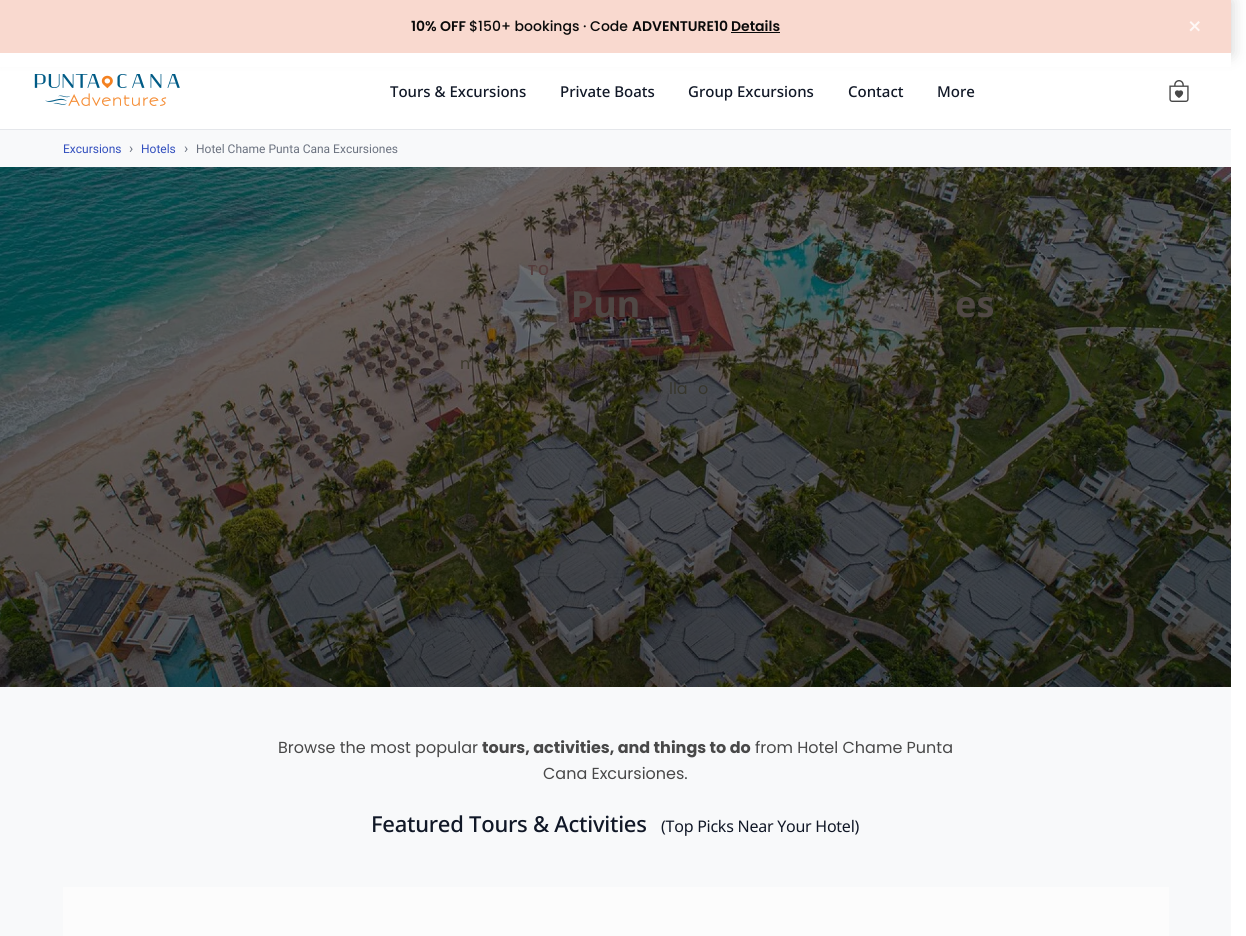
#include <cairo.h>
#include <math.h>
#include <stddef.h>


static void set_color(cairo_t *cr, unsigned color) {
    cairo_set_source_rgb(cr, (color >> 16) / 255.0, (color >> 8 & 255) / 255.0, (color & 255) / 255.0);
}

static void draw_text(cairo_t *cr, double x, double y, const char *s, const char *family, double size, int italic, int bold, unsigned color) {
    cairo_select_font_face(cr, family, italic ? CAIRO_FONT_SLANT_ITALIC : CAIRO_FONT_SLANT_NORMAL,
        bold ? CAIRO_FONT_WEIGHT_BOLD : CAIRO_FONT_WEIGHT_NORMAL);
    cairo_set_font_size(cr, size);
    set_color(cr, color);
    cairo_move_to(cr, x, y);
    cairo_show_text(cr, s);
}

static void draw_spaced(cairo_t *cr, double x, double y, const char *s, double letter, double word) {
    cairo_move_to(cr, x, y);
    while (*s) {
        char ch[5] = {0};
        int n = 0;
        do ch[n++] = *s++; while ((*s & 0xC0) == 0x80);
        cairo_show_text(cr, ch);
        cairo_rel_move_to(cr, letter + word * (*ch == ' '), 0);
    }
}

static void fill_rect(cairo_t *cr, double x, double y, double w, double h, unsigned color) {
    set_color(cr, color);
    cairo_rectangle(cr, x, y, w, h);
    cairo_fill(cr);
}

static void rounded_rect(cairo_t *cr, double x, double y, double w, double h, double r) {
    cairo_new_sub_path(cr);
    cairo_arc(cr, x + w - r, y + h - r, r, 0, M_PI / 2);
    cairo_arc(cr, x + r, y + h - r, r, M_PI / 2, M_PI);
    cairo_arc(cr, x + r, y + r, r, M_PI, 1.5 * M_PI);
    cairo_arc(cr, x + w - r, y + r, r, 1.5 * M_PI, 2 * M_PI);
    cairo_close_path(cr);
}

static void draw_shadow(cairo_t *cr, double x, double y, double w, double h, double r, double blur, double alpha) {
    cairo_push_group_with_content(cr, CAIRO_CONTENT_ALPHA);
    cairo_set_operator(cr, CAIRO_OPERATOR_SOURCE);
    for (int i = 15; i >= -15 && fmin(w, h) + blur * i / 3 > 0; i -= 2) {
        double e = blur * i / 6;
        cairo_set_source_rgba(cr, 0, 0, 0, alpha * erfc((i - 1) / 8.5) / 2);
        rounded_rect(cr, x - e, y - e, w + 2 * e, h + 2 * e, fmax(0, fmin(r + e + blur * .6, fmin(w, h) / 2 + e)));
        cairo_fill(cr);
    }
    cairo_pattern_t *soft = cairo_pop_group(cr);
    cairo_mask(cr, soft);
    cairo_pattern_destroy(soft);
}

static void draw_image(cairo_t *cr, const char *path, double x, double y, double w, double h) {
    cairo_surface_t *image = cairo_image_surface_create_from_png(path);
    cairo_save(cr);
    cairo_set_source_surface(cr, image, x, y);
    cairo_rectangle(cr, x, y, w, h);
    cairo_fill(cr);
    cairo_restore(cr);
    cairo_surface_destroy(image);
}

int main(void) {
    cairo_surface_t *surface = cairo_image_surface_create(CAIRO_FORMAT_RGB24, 1246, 936);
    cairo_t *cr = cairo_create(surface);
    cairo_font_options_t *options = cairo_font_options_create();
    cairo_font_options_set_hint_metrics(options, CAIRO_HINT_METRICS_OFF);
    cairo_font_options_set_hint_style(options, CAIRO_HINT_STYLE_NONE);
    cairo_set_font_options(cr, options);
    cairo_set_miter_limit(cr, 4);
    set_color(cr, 0xFFFFFF);
    cairo_paint(cr);
    set_color(cr, 0x000000);
    draw_shadow(cr, 0, 1, 1231, 53, 0, 8, 0.2);
    fill_rect(cr, 0, 0, 1231, 53, 0xF9D9CF);
    draw_text(cr, 411, 31, "10% OFF", "Poppins SemiBold", 14, 0, 0, 0x0A0A0A);
    draw_text(cr, 469, 31, "$150+ bookings · Code", "Poppins Medium", 14, 0, 0, 0x0A0A0A);
    draw_text(cr, 632, 31, "ADVENTURE10", "Poppins SemiBold", 14, 0, 0, 0x0A0A0A);
    draw_text(cr, 731, 31, "Details", "Poppins SemiBold", 14, 0, 0, 0x0A0A0A);
    fill_rect(cr, 731, 32, 49, 1, 0x0A0A0A);
    draw_text(cr, 1187, 35, "×", "Poppins", 24, 0, 0, 0xFEF7F5);
    fill_rect(cr, 0, 53, 1231, 14, 0xFFFFFF);
    fill_rect(cr, 0, 129, 1231, 1, 0xE5E7EB);
    draw_image(cr, "assets/img1.png", 34, 74, 146, 32);
    draw_text(cr, 390, 97, "Tours & Excursions", "Noto Sans Medium", 15, 0, 0, 0x111827);
    draw_text(cr, 560, 97, "Private Boats", "Noto Sans Medium", 15, 0, 0, 0x111827);
    draw_text(cr, 688, 97, "Group Excursions", "Noto Sans Medium", 15, 0, 0, 0x111827);
    draw_text(cr, 848, 97, "Contact", "Noto Sans Medium", 15, 0, 0, 0x111827);
    draw_text(cr, 937, 97, "More", "Noto Sans Medium", 15, 0, 0, 0x111827);
    draw_image(cr, "assets/img2.png", 1169, 80, 20, 22);
    fill_rect(cr, 0, 130, 1231, 37, 0xF8F9FA);
    draw_text(cr, 63, 153, "Excursions", "Roboto", 12, 0, 0, 0x324FBE);
    draw_text(cr, 129, 153, "›", "Roboto", 14, 0, 0, 0x6B7280);
    draw_text(cr, 141, 153, "Hotels", "Roboto", 12, 0, 0, 0x324FBE);
    draw_text(cr, 184, 153, "›", "Roboto", 14, 0, 0, 0x6B7280);
    draw_text(cr, 196, 153, "Hotel Chame Punta Cana Excursiones", "Roboto", 12, 0, 0, 0x6B7280);
    draw_image(cr, "assets/img3.png", 0, 167, 1231, 520);
    cairo_select_font_face(cr, "Noto Sans SemiBold", CAIRO_FONT_SLANT_NORMAL, CAIRO_FONT_WEIGHT_NORMAL);
    cairo_set_font_size(cr, 14);
    set_color(cr, 0x553D3D);
    draw_spaced(cr, 528, 275, "TO", 2, 0);
    draw_text(cr, 571, 317, "Pun", "Noto Sans", 36, 0, 1, 0x504845);
    draw_text(cr, 955, 317, "es", "Noto Sans", 36, 0, 1, 0x504845);
    draw_text(cr, 460, 369, "n", "Poppins", 16, 0, 0, 0x3E3A2D);
    draw_text(cr, 669, 394, "lla", "Poppins", 16, 0, 0, 0x37362C);
    draw_text(cr, 698, 394, "o", "Poppins", 16, 0, 0, 0x37362C);
    fill_rect(cr, 0, 687, 1231, 249, 0xF8F9FA);
    draw_text(cr, 278, 753, "Browse the most popular", "Poppins", 16, 0, 0, 0x484848);
    draw_text(cr, 482, 753, "tours, activities, and things to do", "Poppins", 16, 0, 1, 0x484848);
    draw_text(cr, 755, 753, "from Hotel Chame Punta", "Poppins", 16, 0, 0, 0x484848);
    draw_text(cr, 543, 779, "Cana Excursiones.", "Poppins", 16, 0, 0, 0x484848);
    cairo_select_font_face(cr, "Noto Sans Medium", CAIRO_FONT_SLANT_NORMAL, CAIRO_FONT_WEIGHT_NORMAL);
    cairo_set_font_size(cr, 22);
    set_color(cr, 0x111827);
    draw_spaced(cr, 371, 832, "Featured Tours & Activities", -0.25, 0);
    cairo_select_font_face(cr, "Noto Sans", CAIRO_FONT_SLANT_NORMAL, CAIRO_FONT_WEIGHT_NORMAL);
    cairo_set_font_size(cr, 16);
    draw_spaced(cr, 661, 832, "(Top Picks Near Your Hotel)", -0.25, 0);
    fill_rect(cr, 63, 887, 1106, 49, 0xFCFCFC);
    cairo_surface_write_to_png(surface, "output.png");
    cairo_font_options_destroy(options);
    cairo_destroy(cr);
    cairo_surface_destroy(surface);
    return 0;
}
